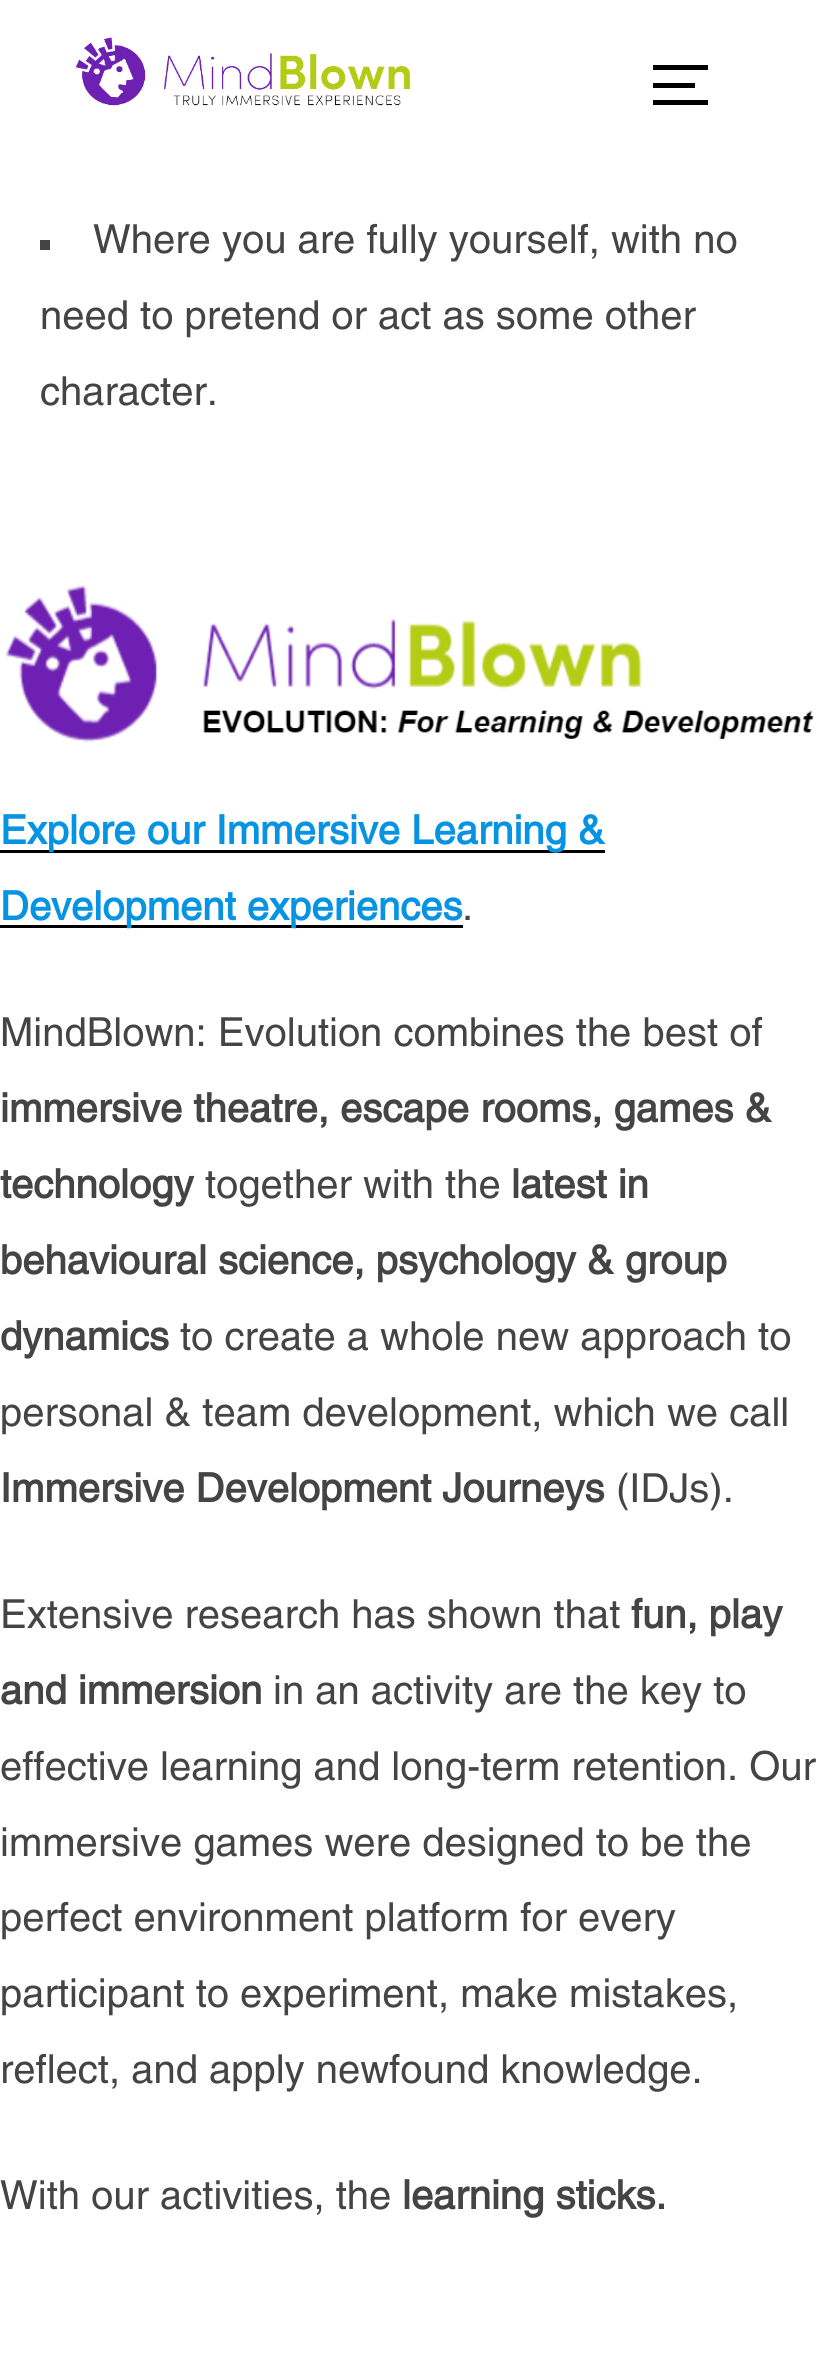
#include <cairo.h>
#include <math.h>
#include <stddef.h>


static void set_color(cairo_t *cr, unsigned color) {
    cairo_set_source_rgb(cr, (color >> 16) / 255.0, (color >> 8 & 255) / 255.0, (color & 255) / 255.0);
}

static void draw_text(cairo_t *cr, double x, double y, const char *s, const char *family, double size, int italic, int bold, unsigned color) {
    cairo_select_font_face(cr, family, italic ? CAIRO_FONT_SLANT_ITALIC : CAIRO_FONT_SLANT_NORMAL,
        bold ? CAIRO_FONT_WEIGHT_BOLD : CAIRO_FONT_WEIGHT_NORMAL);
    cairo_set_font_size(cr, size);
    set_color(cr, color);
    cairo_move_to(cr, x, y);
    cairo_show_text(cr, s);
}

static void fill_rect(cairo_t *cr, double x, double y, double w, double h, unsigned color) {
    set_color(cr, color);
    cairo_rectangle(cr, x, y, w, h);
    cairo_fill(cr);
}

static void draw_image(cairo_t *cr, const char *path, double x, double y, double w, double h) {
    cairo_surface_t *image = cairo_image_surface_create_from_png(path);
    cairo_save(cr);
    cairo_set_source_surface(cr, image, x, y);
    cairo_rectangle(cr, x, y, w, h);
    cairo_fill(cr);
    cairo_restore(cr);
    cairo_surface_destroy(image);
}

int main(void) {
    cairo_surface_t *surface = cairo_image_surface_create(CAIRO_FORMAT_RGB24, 821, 2367);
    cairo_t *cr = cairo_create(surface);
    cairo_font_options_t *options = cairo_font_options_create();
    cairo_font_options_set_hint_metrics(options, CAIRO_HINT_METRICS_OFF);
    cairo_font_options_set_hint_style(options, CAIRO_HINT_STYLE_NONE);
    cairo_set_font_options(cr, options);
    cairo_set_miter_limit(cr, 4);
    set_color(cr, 0xFFFFFF);
    cairo_paint(cr);
    draw_image(cr, "assets/img1.png", 75, 37, 336, 69);
    fill_rect(cr, 653, 65, 55, 5, 0x000000);
    fill_rect(cr, 653, 83, 42, 5, 0x000000);
    fill_rect(cr, 653, 100, 55, 5, 0x000000);
    fill_rect(cr, 40, 240, 10, 10, 0x444444);
    draw_text(cr, 93, 253, "Where you are fully yourself, with no", "Helvetica", 40, 0, 0, 0x444444);
    draw_text(cr, 40, 329, "need to pretend or act as some other", "Helvetica", 40, 0, 0, 0x444444);
    draw_text(cr, 40, 405, "character.", "Helvetica", 40, 0, 0, 0x444444);
    draw_image(cr, "assets/img2.png", 5, 585, 809, 157);
    fill_rect(cr, 0, 850, 605, 3, 0x000000);
    draw_text(cr, 0, 844, "Explore our Immersive Learning &", "Helvetica", 40, 0, 1, 0x0693E3);
    fill_rect(cr, 0, 925, 463, 3, 0x000000);
    draw_text(cr, 0, 920, "Development experiences", "Helvetica", 40, 0, 1, 0x0693E3);
    draw_text(cr, 462, 920, ".", "Helvetica", 40, 0, 0, 0x444444);
    draw_text(cr, 0, 1046, "MindBlown: Evolution combines the best of", "Helvetica", 40, 0, 0, 0x444444);
    draw_text(cr, 0, 1122, "immersive theatre, escape rooms, games &", "Helvetica", 40, 0, 1, 0x444444);
    draw_text(cr, 0, 1198, "technology", "Helvetica", 40, 0, 1, 0x444444);
    draw_text(cr, 205, 1198, "together with the", "Helvetica", 40, 0, 0, 0x444444);
    draw_text(cr, 511, 1198, "latest in", "Helvetica", 40, 0, 1, 0x444444);
    draw_text(cr, 0, 1274, "behavioural science, psychology & group", "Helvetica", 40, 0, 1, 0x444444);
    draw_text(cr, 0, 1350, "dynamics", "Helvetica", 40, 0, 1, 0x444444);
    draw_text(cr, 180, 1350, "to create a whole new approach to", "Helvetica", 40, 0, 0, 0x444444);
    draw_text(cr, 0, 1426, "personal & team development, which we call", "Helvetica", 40, 0, 0, 0x444444);
    draw_text(cr, 0, 1502, "Immersive Development Journeys", "Helvetica", 40, 0, 1, 0x444444);
    draw_text(cr, 616, 1502, "(IDJs).", "Helvetica", 40, 0, 0, 0x444444);
    draw_text(cr, 0, 1628, "Extensive research has shown that", "Helvetica", 40, 0, 0, 0x444444);
    draw_text(cr, 631, 1628, "fun, play", "Helvetica", 40, 0, 1, 0x444444);
    draw_text(cr, 0, 1704, "and immersion", "Helvetica", 40, 0, 1, 0x444444);
    draw_text(cr, 273, 1704, "in an activity are the key to", "Helvetica", 40, 0, 0, 0x444444);
    draw_text(cr, 0, 1780, "effective learning and long-term retention. Our", "Helvetica", 40, 0, 0, 0x444444);
    draw_text(cr, 0, 1856, "immersive games were designed to be the", "Helvetica", 40, 0, 0, 0x444444);
    draw_text(cr, 0, 1931, "perfect environment platform for every", "Helvetica", 40, 0, 0, 0x444444);
    draw_text(cr, 0, 2007, "participant to experiment, make mistakes,", "Helvetica", 40, 0, 0, 0x444444);
    draw_text(cr, 0, 2083, "reflect, and apply newfound knowledge.", "Helvetica", 40, 0, 0, 0x444444);
    draw_text(cr, 0, 2209, "With our activities, the", "Helvetica", 40, 0, 0, 0x444444);
    draw_text(cr, 402, 2209, "learning sticks.", "Helvetica", 40, 0, 1, 0x444444);
    cairo_surface_write_to_png(surface, "output.png");
    cairo_font_options_destroy(options);
    cairo_destroy(cr);
    cairo_surface_destroy(surface);
    return 0;
}
